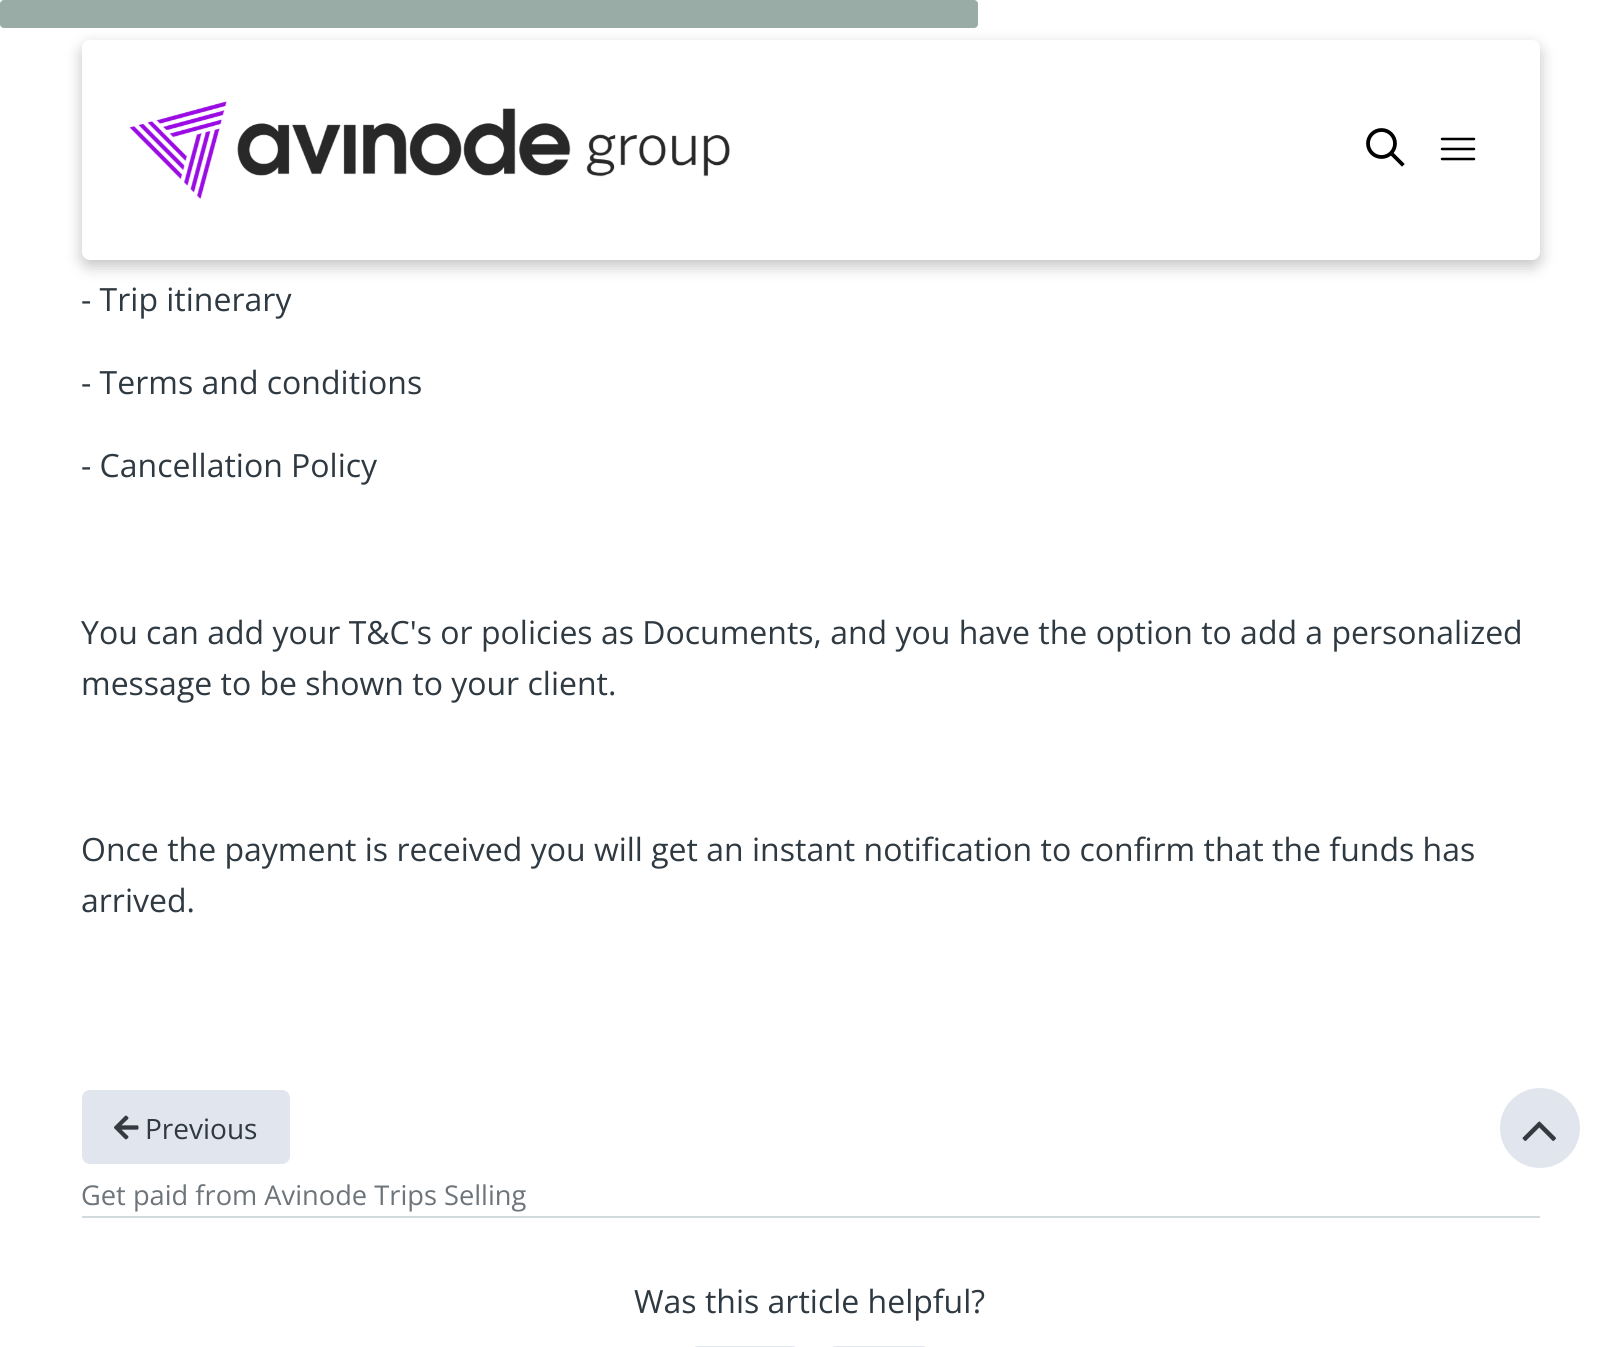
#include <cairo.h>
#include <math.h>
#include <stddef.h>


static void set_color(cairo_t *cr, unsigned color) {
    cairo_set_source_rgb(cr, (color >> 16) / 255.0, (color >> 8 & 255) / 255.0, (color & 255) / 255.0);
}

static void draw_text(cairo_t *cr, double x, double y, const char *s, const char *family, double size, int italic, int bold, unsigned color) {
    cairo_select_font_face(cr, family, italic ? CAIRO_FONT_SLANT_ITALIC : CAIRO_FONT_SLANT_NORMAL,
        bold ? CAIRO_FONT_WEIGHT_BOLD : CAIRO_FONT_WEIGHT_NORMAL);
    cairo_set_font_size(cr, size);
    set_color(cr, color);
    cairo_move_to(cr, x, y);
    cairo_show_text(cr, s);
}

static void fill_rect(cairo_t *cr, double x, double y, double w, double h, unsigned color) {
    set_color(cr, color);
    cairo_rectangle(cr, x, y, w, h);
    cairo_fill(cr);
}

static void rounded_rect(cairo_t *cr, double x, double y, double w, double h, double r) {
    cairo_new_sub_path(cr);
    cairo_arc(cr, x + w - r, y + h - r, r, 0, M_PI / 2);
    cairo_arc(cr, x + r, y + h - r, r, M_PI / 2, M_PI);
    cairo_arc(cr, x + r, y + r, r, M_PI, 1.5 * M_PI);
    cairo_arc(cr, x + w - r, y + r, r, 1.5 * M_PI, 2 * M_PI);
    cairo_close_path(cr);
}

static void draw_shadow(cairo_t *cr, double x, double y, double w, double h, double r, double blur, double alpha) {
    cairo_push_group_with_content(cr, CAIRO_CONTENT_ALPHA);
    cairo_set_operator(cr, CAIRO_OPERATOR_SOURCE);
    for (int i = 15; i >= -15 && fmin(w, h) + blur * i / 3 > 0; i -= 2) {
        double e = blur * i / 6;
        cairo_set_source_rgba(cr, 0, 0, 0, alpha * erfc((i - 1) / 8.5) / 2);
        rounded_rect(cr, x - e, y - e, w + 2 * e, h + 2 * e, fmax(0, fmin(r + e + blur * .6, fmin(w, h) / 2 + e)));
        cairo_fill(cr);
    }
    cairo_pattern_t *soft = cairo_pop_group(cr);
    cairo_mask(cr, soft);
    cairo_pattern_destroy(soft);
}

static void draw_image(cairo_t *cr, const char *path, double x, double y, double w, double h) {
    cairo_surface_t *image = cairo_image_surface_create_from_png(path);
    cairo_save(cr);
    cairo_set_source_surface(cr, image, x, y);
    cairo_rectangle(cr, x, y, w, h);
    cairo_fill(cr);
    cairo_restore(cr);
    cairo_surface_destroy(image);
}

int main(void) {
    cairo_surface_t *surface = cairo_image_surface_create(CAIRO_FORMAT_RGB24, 1619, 1347);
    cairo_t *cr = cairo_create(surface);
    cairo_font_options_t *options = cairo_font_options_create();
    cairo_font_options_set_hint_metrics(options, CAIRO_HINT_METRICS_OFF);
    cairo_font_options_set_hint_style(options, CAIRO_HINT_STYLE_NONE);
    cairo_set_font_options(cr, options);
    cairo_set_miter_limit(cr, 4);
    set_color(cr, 0xFFFFFF);
    cairo_paint(cr);
    set_color(cr, 0x000000);
    draw_shadow(cr, 82, 46, 1458, 220, 8, 8, 0.24);
    set_color(cr, 0xFFFFFF);
    rounded_rect(cr, 82, 40, 1458, 220, 8);
    cairo_fill(cr);
    draw_image(cr, "assets/img1.png", 129, 101, 601, 98);
    cairo_new_path(cr);
    cairo_move_to(cr, 1402, 164);
    cairo_line_to(cr, 1391.5, 153.5);
    set_color(cr, 0x000000);
    cairo_set_line_width(cr, 3.8);
    cairo_set_line_cap(cr, CAIRO_LINE_CAP_SQUARE);
    cairo_stroke(cr);
    cairo_arc(cr, 1381.5, 143.5, 13.5, 0, 2 * M_PI);
    cairo_set_line_cap(cr, CAIRO_LINE_CAP_BUTT);
    cairo_stroke(cr);
    cairo_new_path(cr);
    cairo_move_to(cr, 1442, 139);
    cairo_line_to(cr, 1474, 139);
    cairo_move_to(cr, 1442, 149);
    cairo_line_to(cr, 1474, 149);
    cairo_move_to(cr, 1442, 159);
    cairo_line_to(cr, 1474, 159);
    cairo_set_line_width(cr, 2.5);
    cairo_set_line_cap(cr, CAIRO_LINE_CAP_ROUND);
    cairo_stroke(cr);
    set_color(cr, 0x99ACA5);
    rounded_rect(cr, 0, 0, 978, 28, 4);
    cairo_fill(cr);
    draw_text(cr, 81, 311, "- Trip itinerary", "Open Sans", 32, 0, 0, 0x2F3941);
    draw_text(cr, 81, 394, "- Terms and conditions", "Open Sans", 32, 0, 0, 0x2F3941);
    draw_text(cr, 81, 477, "- Cancellation Policy", "Open Sans", 32, 0, 0, 0x2F3941);
    draw_text(cr, 81, 644, "You can add your T&C's or policies as Documents, and you have the option to add a personalized", "Open Sans", 32, 0, 0, 0x2F3941);
    draw_text(cr, 81, 695, "message to be shown to your client.", "Open Sans", 32, 0, 0, 0x2F3941);
    draw_text(cr, 81, 861, "Once the payment is received you will get an instant notification to confirm that the funds has", "Open Sans", 32, 0, 0, 0x2F3941);
    draw_text(cr, 81, 912, "arrived.", "Open Sans", 32, 0, 0, 0x2F3941);
    set_color(cr, 0xE1E5EE);
    rounded_rect(cr, 82, 1090, 208, 74, 8);
    cairo_fill(cr);
    draw_image(cr, "assets/img2.png", 114, 1115, 25, 25);
    draw_text(cr, 145, 1139, "Previous", "Open Sans", 28, 0, 0, 0x2F3941);
    draw_text(cr, 81, 1205, "Get paid from Avinode Trips Selling", "Open Sans", 27.25, 0, 0, 0x6D747A);
    fill_rect(cr, 82, 1216, 1458, 2, 0xD1DBDB);
    draw_text(cr, 634, 1313, "Was this article helpful?", "Open Sans", 32, 0, 0, 0x2F3941);
    set_color(cr, 0xE1E5EE);
    rounded_rect(cr, 690, 1346, 110, 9, 8);
    cairo_fill(cr);
    rounded_rect(cr, 828, 1346, 102, 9, 8);
    cairo_fill(cr);
    cairo_arc(cr, 1540, 1128, 40, 0, 2 * M_PI);
    cairo_fill(cr);
    draw_image(cr, "assets/img3.png", 1522, 1121, 34, 20);
    cairo_surface_write_to_png(surface, "output.png");
    cairo_font_options_destroy(options);
    cairo_destroy(cr);
    cairo_surface_destroy(surface);
    return 0;
}
